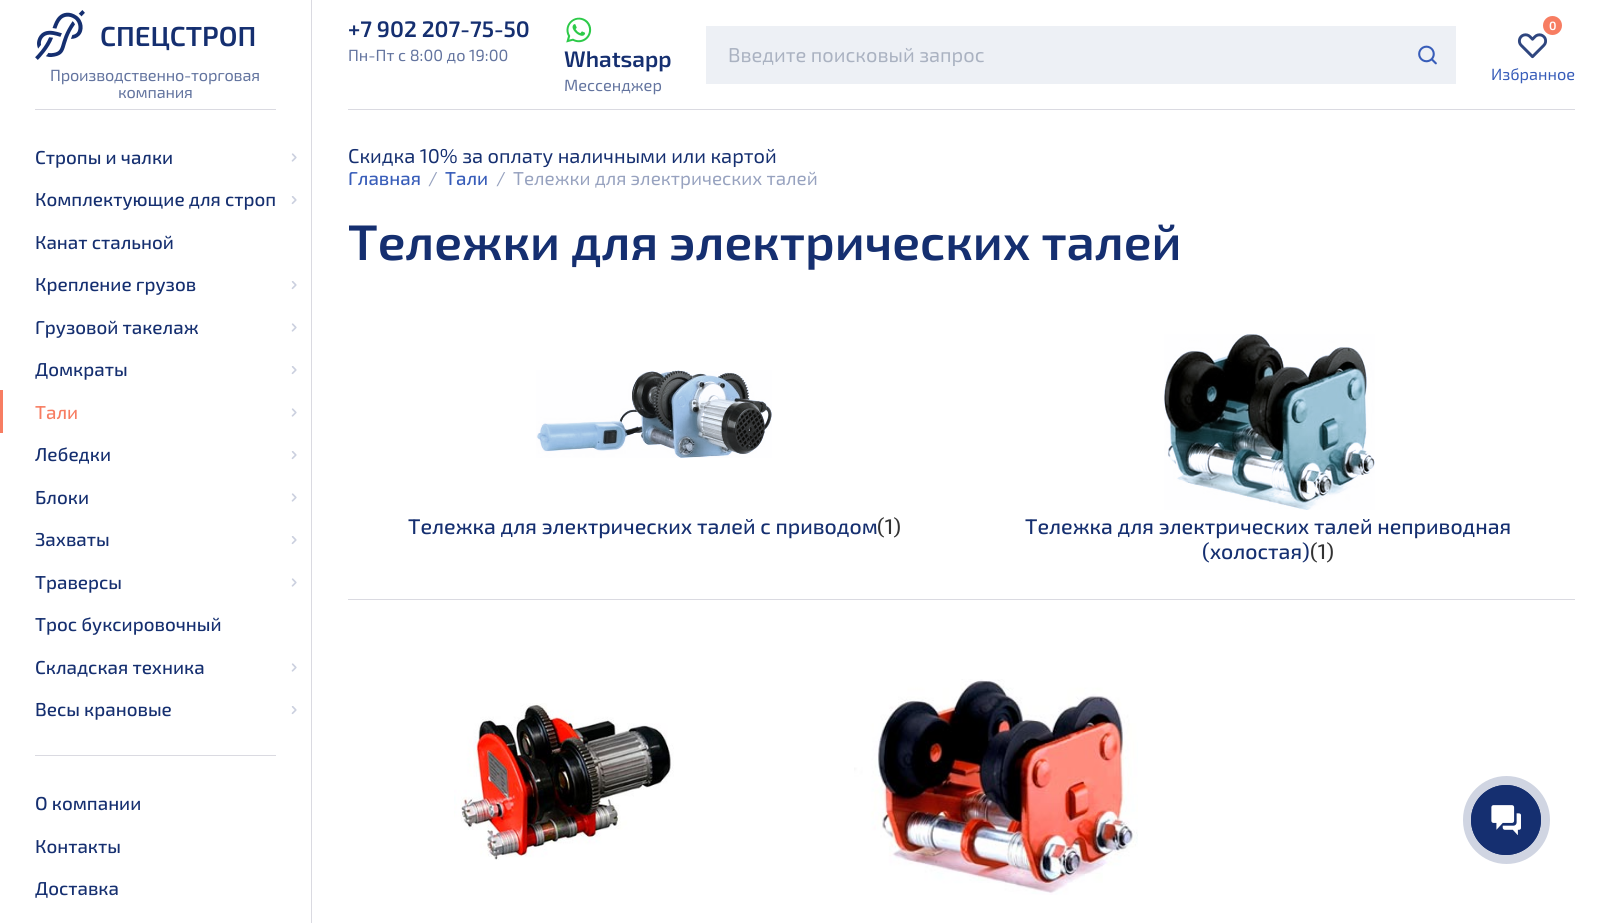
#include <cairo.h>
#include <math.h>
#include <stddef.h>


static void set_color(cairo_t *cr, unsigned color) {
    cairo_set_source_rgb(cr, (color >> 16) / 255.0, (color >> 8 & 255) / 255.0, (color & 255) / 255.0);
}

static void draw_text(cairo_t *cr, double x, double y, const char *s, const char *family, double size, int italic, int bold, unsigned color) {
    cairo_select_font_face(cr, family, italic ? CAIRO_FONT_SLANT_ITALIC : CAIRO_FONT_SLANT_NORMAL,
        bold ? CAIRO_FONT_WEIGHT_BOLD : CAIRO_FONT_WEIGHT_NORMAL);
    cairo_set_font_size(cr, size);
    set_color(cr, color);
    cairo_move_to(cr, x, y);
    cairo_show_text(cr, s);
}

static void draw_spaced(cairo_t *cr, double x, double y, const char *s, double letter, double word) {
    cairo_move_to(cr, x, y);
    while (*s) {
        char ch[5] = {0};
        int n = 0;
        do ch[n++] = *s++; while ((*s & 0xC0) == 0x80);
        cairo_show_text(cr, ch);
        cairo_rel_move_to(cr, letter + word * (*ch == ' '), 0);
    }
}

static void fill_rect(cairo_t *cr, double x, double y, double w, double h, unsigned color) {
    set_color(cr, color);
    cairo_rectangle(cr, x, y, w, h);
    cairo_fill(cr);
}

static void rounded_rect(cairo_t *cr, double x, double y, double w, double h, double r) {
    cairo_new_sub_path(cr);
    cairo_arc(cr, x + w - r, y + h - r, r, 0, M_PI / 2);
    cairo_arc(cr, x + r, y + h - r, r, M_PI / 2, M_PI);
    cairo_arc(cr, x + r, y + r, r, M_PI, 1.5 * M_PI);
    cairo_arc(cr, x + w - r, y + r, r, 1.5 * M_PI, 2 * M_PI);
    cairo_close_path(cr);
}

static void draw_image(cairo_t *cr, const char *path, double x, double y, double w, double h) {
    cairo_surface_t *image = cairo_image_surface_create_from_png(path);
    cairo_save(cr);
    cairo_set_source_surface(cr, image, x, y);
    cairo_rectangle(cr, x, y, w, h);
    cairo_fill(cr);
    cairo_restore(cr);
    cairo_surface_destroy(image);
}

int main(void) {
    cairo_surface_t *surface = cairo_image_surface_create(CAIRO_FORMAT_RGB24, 1609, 923);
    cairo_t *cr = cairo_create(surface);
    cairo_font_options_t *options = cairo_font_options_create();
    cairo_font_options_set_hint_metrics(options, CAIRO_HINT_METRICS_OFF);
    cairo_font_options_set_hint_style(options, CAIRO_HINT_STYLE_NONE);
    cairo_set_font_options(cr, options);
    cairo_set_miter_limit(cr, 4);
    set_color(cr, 0xFFFFFF);
    cairo_paint(cr);
    fill_rect(cr, 311, 0, 1, 923, 0xDADAE1);
    draw_image(cr, "assets/img1.png", 35, 10, 50, 50);
    draw_text(cr, 100, 46, "СПЕЦСТРОП", "Exo 2 SemiBold", 27.5, 0, 0, 0x152F70);
    cairo_select_font_face(cr, "Exo 2", CAIRO_FONT_SLANT_NORMAL, CAIRO_FONT_WEIGHT_NORMAL);
    cairo_set_font_size(cr, 16.25);
    set_color(cr, 0x63749F);
    draw_spaced(cr, 50, 81, "Производственно-торговая", -0.2, 0);
    draw_spaced(cr, 118, 98, "компания", -0.2, 0);
    fill_rect(cr, 35, 109, 241, 1, 0xDADAE1);
    fill_rect(cr, 35, 755, 241, 1, 0xDADAE1);
    draw_text(cr, 35, 164, "Стропы и чалки", "Exo 2 Medium", 18.75, 0, 0, 0x152F70);
    draw_image(cr, "assets/img2.png", 291, 153, 6, 9);
    draw_text(cr, 35, 206, "Комплектующие для строп", "Exo 2 Medium", 18.75, 0, 0, 0x152F70);
    draw_image(cr, "assets/img3.png", 291, 196, 6, 9);
    draw_text(cr, 35, 249, "Канат стальной", "Exo 2 Medium", 18.75, 0, 0, 0x152F70);
    draw_text(cr, 35, 291, "Крепление грузов", "Exo 2 Medium", 18.75, 0, 0, 0x152F70);
    draw_image(cr, "assets/img3.png", 291, 281, 6, 9);
    draw_text(cr, 35, 334, "Грузовой такелаж", "Exo 2 Medium", 18.75, 0, 0, 0x152F70);
    draw_image(cr, "assets/img2.png", 291, 323, 6, 9);
    draw_text(cr, 35, 376, "Домкраты", "Exo 2 Medium", 18.75, 0, 0, 0x152F70);
    draw_image(cr, "assets/img3.png", 291, 366, 6, 9);
    fill_rect(cr, 0, 390, 3, 43, 0xF77D62);
    draw_text(cr, 35, 419, "Тали", "Exo 2 Medium", 18.75, 0, 0, 0xF77D62);
    draw_image(cr, "assets/img2.png", 291, 408, 6, 9);
    draw_text(cr, 35, 461, "Лебедки", "Exo 2 Medium", 18.75, 0, 0, 0x152F70);
    draw_image(cr, "assets/img3.png", 291, 451, 6, 9);
    draw_text(cr, 35, 504, "Блоки", "Exo 2 Medium", 18.75, 0, 0, 0x152F70);
    draw_image(cr, "assets/img2.png", 291, 493, 6, 9);
    draw_text(cr, 35, 546, "Захваты", "Exo 2 Medium", 18.75, 0, 0, 0x152F70);
    draw_image(cr, "assets/img3.png", 291, 536, 6, 9);
    draw_text(cr, 35, 589, "Траверсы", "Exo 2 Medium", 18.75, 0, 0, 0x152F70);
    draw_image(cr, "assets/img2.png", 291, 578, 6, 9);
    draw_text(cr, 35, 631, "Трос буксировочный", "Exo 2 Medium", 18.75, 0, 0, 0x152F70);
    draw_text(cr, 35, 674, "Складская техника", "Exo 2 Medium", 18.75, 0, 0, 0x152F70);
    draw_image(cr, "assets/img2.png", 291, 663, 6, 9);
    draw_text(cr, 35, 716, "Весы крановые", "Exo 2 Medium", 18.75, 0, 0, 0x152F70);
    draw_image(cr, "assets/img3.png", 291, 706, 6, 9);
    draw_text(cr, 35, 810, "О компании", "Exo 2 Medium", 18.75, 0, 0, 0x152F70);
    draw_text(cr, 35, 853, "Контакты", "Exo 2 Medium", 18.75, 0, 0, 0x152F70);
    draw_text(cr, 35, 895, "Доставка", "Exo 2 Medium", 18.75, 0, 0, 0x152F70);
    fill_rect(cr, 348, 109, 1227, 1, 0xDADAE1);
    draw_text(cr, 348, 37, "+7 902 207-75-50", "Exo 2 SemiBold", 22.5, 0, 0, 0x152F70);
    draw_text(cr, 348, 61, "Пн-Пт с 8:00 до 19:00", "Exo 2", 16.25, 0, 0, 0x63749F);
    draw_image(cr, "assets/img4.png", 566, 17, 26, 26);
    draw_text(cr, 564, 67, "Whatsapp", "Exo 2 SemiBold", 22.5, 0, 0, 0x152F70);
    draw_text(cr, 564, 91, "Мессенджер", "Exo 2", 16.25, 0, 0, 0x63749F);
    fill_rect(cr, 706, 26, 750, 58, 0xEDF0F5);
    draw_text(cr, 728, 62, "Введите поисковый запрос", "Exo 2", 20, 0, 0, 0xAAB2C1);
    draw_image(cr, "assets/img5.png", 1418, 45, 19, 20);
    draw_image(cr, "assets/img6.png", 1517, 33, 30, 26);
    set_color(cr, 0xF77D62);
    cairo_arc(cr, 1552.5, 25.5, 11, 0, 2 * M_PI);
    cairo_fill_preserve(cr);
    set_color(cr, 0xFFFFFF);
    cairo_set_line_width(cr, 3);
    cairo_stroke(cr);
    draw_text(cr, 1549, 30, "0", "Exo 2 SemiBold", 12, 0, 0, 0xFFFFFF);
    draw_text(cr, 1491, 80, "Избранное", "Exo 2", 16.25, 0, 0, 0x385DB9);
    draw_text(cr, 348, 163, "Скидка 10% за оплату наличными или картой", "Exo 2", 20, 0, 0, 0x152F70);
    draw_text(cr, 348, 185, "Главная", "Exo 2 Medium", 18.75, 0, 0, 0x385DB9);
    draw_text(cr, 428, 185, "/", "Exo 2", 18.75, 0, 0, 0x97A2BF);
    draw_text(cr, 445, 185, "Тали", "Exo 2 Medium", 18.75, 0, 0, 0x385DB9);
    draw_text(cr, 496, 185, "/", "Exo 2", 18.75, 0, 0, 0x97A2BF);
    draw_text(cr, 513, 185, "Тележки для электрических талей", "Exo 2", 18.75, 0, 0, 0x97A2BF);
    draw_text(cr, 348, 260, "Тележки для электрических талей", "Exo 2 SemiBold", 50, 0, 0, 0x152F70);
    draw_image(cr, "assets/img7.png", 536, 370, 236, 88);
    draw_text(cr, 408, 534, "Тележка для электрических талей с приводом", "Exo 2 Medium", 21.25, 0, 0, 0x152F70);
    draw_text(cr, 877, 534, "(1)", "Exo 2 Medium", 21.25, 0, 0, 0x333333);
    draw_image(cr, "assets/img8.png", 1164, 334, 211, 176);
    draw_text(cr, 1025, 534, "Тележка для электрических талей неприводная", "Exo 2 Medium", 21.25, 0, 0, 0x152F70);
    draw_text(cr, 1202, 559, "(холостая)", "Exo 2 Medium", 21.25, 0, 0, 0x152F70);
    draw_text(cr, 1310, 559, "(1)", "Exo 2 Medium", 21.25, 0, 0, 0x333333);
    fill_rect(cr, 348, 599, 1227, 1, 0xDADAE1);
    draw_image(cr, "assets/img9.png", 454, 703, 220, 157);
    draw_image(cr, "assets/img10.png", 854, 679, 284, 216);
    set_color(cr, 0xD0D5E2);
    rounded_rect(cr, 1463, 776, 87, 88, 43.5);
    cairo_fill(cr);
    cairo_arc(cr, 1506, 820, 34.5, 0, 2 * M_PI);
    set_color(cr, 0x152F70);
    cairo_set_line_width(cr, 1);
    cairo_stroke(cr);
    cairo_arc(cr, 1506, 820, 35, 0, 2 * M_PI);
    cairo_fill(cr);
    draw_image(cr, "assets/img11.png", 1491, 805, 30, 30);
    cairo_surface_write_to_png(surface, "output.png");
    cairo_font_options_destroy(options);
    cairo_destroy(cr);
    cairo_surface_destroy(surface);
    return 0;
}
